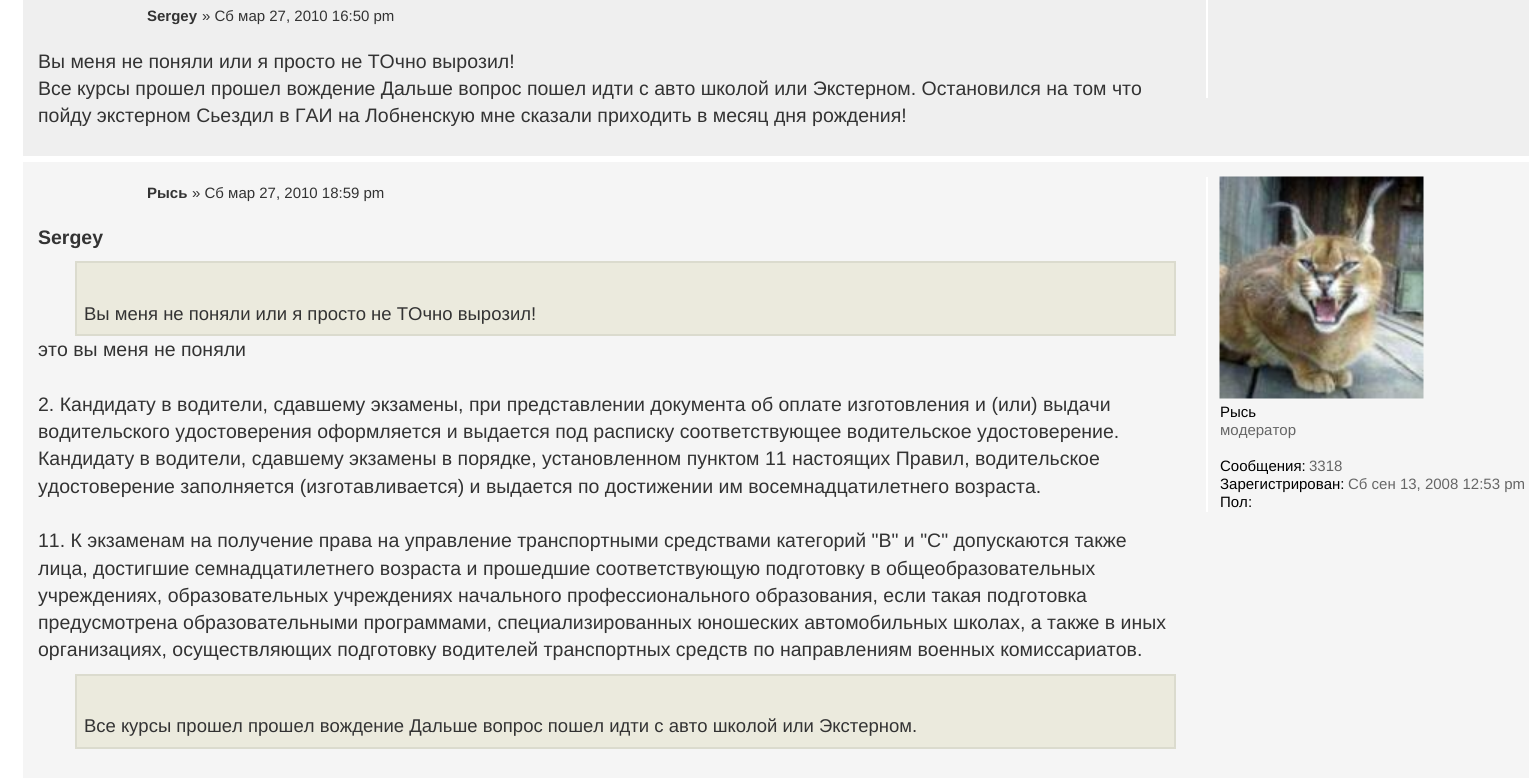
#include <cairo.h>
#include <math.h>
#include <stddef.h>


static void set_color(cairo_t *cr, unsigned color) {
    cairo_set_source_rgb(cr, (color >> 16) / 255.0, (color >> 8 & 255) / 255.0, (color & 255) / 255.0);
}

static void draw_text(cairo_t *cr, double x, double y, const char *s, const char *family, double size, int italic, int bold, unsigned color) {
    cairo_select_font_face(cr, family, italic ? CAIRO_FONT_SLANT_ITALIC : CAIRO_FONT_SLANT_NORMAL,
        bold ? CAIRO_FONT_WEIGHT_BOLD : CAIRO_FONT_WEIGHT_NORMAL);
    cairo_set_font_size(cr, size);
    set_color(cr, color);
    cairo_move_to(cr, x, y);
    cairo_show_text(cr, s);
}

static void fill_rect(cairo_t *cr, double x, double y, double w, double h, unsigned color) {
    set_color(cr, color);
    cairo_rectangle(cr, x, y, w, h);
    cairo_fill(cr);
}

static void draw_image(cairo_t *cr, const char *path, double x, double y, double w, double h) {
    cairo_surface_t *image = cairo_image_surface_create_from_png(path);
    cairo_save(cr);
    cairo_set_source_surface(cr, image, x, y);
    cairo_rectangle(cr, x, y, w, h);
    cairo_fill(cr);
    cairo_restore(cr);
    cairo_surface_destroy(image);
}

int main(void) {
    cairo_surface_t *surface = cairo_image_surface_create(CAIRO_FORMAT_RGB24, 1529, 778);
    cairo_t *cr = cairo_create(surface);
    cairo_font_options_t *options = cairo_font_options_create();
    cairo_font_options_set_hint_metrics(options, CAIRO_HINT_METRICS_OFF);
    cairo_font_options_set_hint_style(options, CAIRO_HINT_STYLE_NONE);
    cairo_set_font_options(cr, options);
    cairo_set_miter_limit(cr, 4);
    set_color(cr, 0xFFFFFF);
    cairo_paint(cr);
    fill_rect(cr, 23, 0, 1506, 156, 0xEFEFEF);
    draw_text(cr, 147, 21, "Sergey", "Liberation Sans", 15, 0, 1, 0x333333);
    draw_text(cr, 202, 21, "» Сб мар 27, 2010 16:50 pm", "Liberation Sans", 15, 0, 0, 0x333333);
    draw_text(cr, 38, 68, "Вы меня не поняли или я просто не ТОчно вырозил!", "Liberation Sans", 19.5, 0, 0, 0x333333);
    draw_text(cr, 38, 95, "Все курсы прошел прошел вождение Дальше вопрос пошел идти с авто школой или Экстерном. Остановился на том что", "Liberation Sans", 19.5, 0, 0, 0x333333);
    draw_text(cr, 38, 122, "пойду экстерном Сьездил в ГАИ на Лобненскую мне сказали приходить в месяц дня рождения!", "Liberation Sans", 19.5, 0, 0, 0x333333);
    fill_rect(cr, 1206, 0, 2, 98, 0xFFFFFF);
    fill_rect(cr, 23, 162, 1506, 616, 0xF5F5F5);
    draw_text(cr, 147, 198, "Рысь", "Liberation Sans", 15, 0, 1, 0x333333);
    draw_text(cr, 192, 198, "» Сб мар 27, 2010 18:59 pm", "Liberation Sans", 15, 0, 0, 0x333333);
    draw_text(cr, 38, 244, "Sergey", "Liberation Sans", 19.5, 0, 1, 0x333333);
    set_color(cr, 0xEBEADD);
    cairo_rectangle(cr, 76, 262, 1099, 73);
    cairo_fill_preserve(cr);
    set_color(cr, 0xDBDBCE);
    cairo_stroke(cr);
    draw_text(cr, 84, 320, "Вы меня не поняли или я просто не ТОчно вырозил!", "Liberation Sans", 18.5, 0, 0, 0x333333);
    draw_text(cr, 38, 356, "это вы меня не поняли", "Liberation Sans", 19.5, 0, 0, 0x333333);
    draw_text(cr, 38, 411, "2. Кандидату в водители, сдавшему экзамены, при представлении документа об оплате изготовления и (или) выдачи", "Liberation Sans", 19.5, 0, 0, 0x333333);
    draw_text(cr, 38, 438, "водительского удостоверения оформляется и выдается под расписку соответствующее водительское удостоверение.", "Liberation Sans", 19.5, 0, 0, 0x333333);
    draw_text(cr, 38, 465, "Кандидату в водители, сдавшему экзамены в порядке, установленном пунктом 11 настоящих Правил, водительское", "Liberation Sans", 19.5, 0, 0, 0x333333);
    draw_text(cr, 38, 493, "удостоверение заполняется (изготавливается) и выдается по достижении им восемнадцатилетнего возраста.", "Liberation Sans", 19.5, 0, 0, 0x333333);
    draw_text(cr, 38, 547, "11. К экзаменам на получение права на управление транспортными средствами категорий \"В\" и \"С\" допускаются также", "Liberation Sans", 19.5, 0, 0, 0x333333);
    draw_text(cr, 38, 575, "лица, достигшие семнадцатилетнего возраста и прошедшие соответствующую подготовку в общеобразовательных", "Liberation Sans", 19.5, 0, 0, 0x333333);
    draw_text(cr, 38, 602, "учреждениях, образовательных учреждениях начального профессионального образования, если такая подготовка", "Liberation Sans", 19.5, 0, 0, 0x333333);
    draw_text(cr, 38, 629, "предусмотрена образовательными программами, специализированных юношеских автомобильных школах, а также в иных", "Liberation Sans", 19.5, 0, 0, 0x333333);
    draw_text(cr, 38, 656, "организациях, осуществляющих подготовку водителей транспортных средств по направлениям военных комиссариатов.", "Liberation Sans", 19.5, 0, 0, 0x333333);
    set_color(cr, 0xEBEADD);
    cairo_rectangle(cr, 76, 675, 1099, 73);
    cairo_fill_preserve(cr);
    set_color(cr, 0xDBDBCE);
    cairo_stroke(cr);
    draw_text(cr, 84, 732, "Все курсы прошел прошел вождение Дальше вопрос пошел идти с авто школой или Экстерном.", "Liberation Sans", 18.5, 0, 0, 0x333333);
    fill_rect(cr, 1206, 177, 2, 335, 0xFFFFFF);
    draw_image(cr, "assets/img1.png", 1219, 176, 205, 223);
    draw_text(cr, 1220, 417, "Рысь", "Liberation Sans", 15, 0, 0, 0x000000);
    draw_text(cr, 1220, 435, "модератор", "Liberation Sans", 15, 0, 0, 0x666666);
    draw_text(cr, 1220, 471, "Сообщения:", "Liberation Sans", 15, 0, 0, 0x000000);
    draw_text(cr, 1309, 471, "3318", "Liberation Sans", 15, 0, 0, 0x666666);
    draw_text(cr, 1220, 489, "Зарегистрирован:", "Liberation Sans", 15, 0, 0, 0x000000);
    draw_text(cr, 1348, 489, "Сб сен 13, 2008 12:53 pm", "Liberation Sans", 15, 0, 0, 0x666666);
    draw_text(cr, 1220, 507, "Пол:", "Liberation Sans", 15, 0, 0, 0x000000);
    cairo_surface_write_to_png(surface, "output.png");
    cairo_font_options_destroy(options);
    cairo_destroy(cr);
    cairo_surface_destroy(surface);
    return 0;
}
